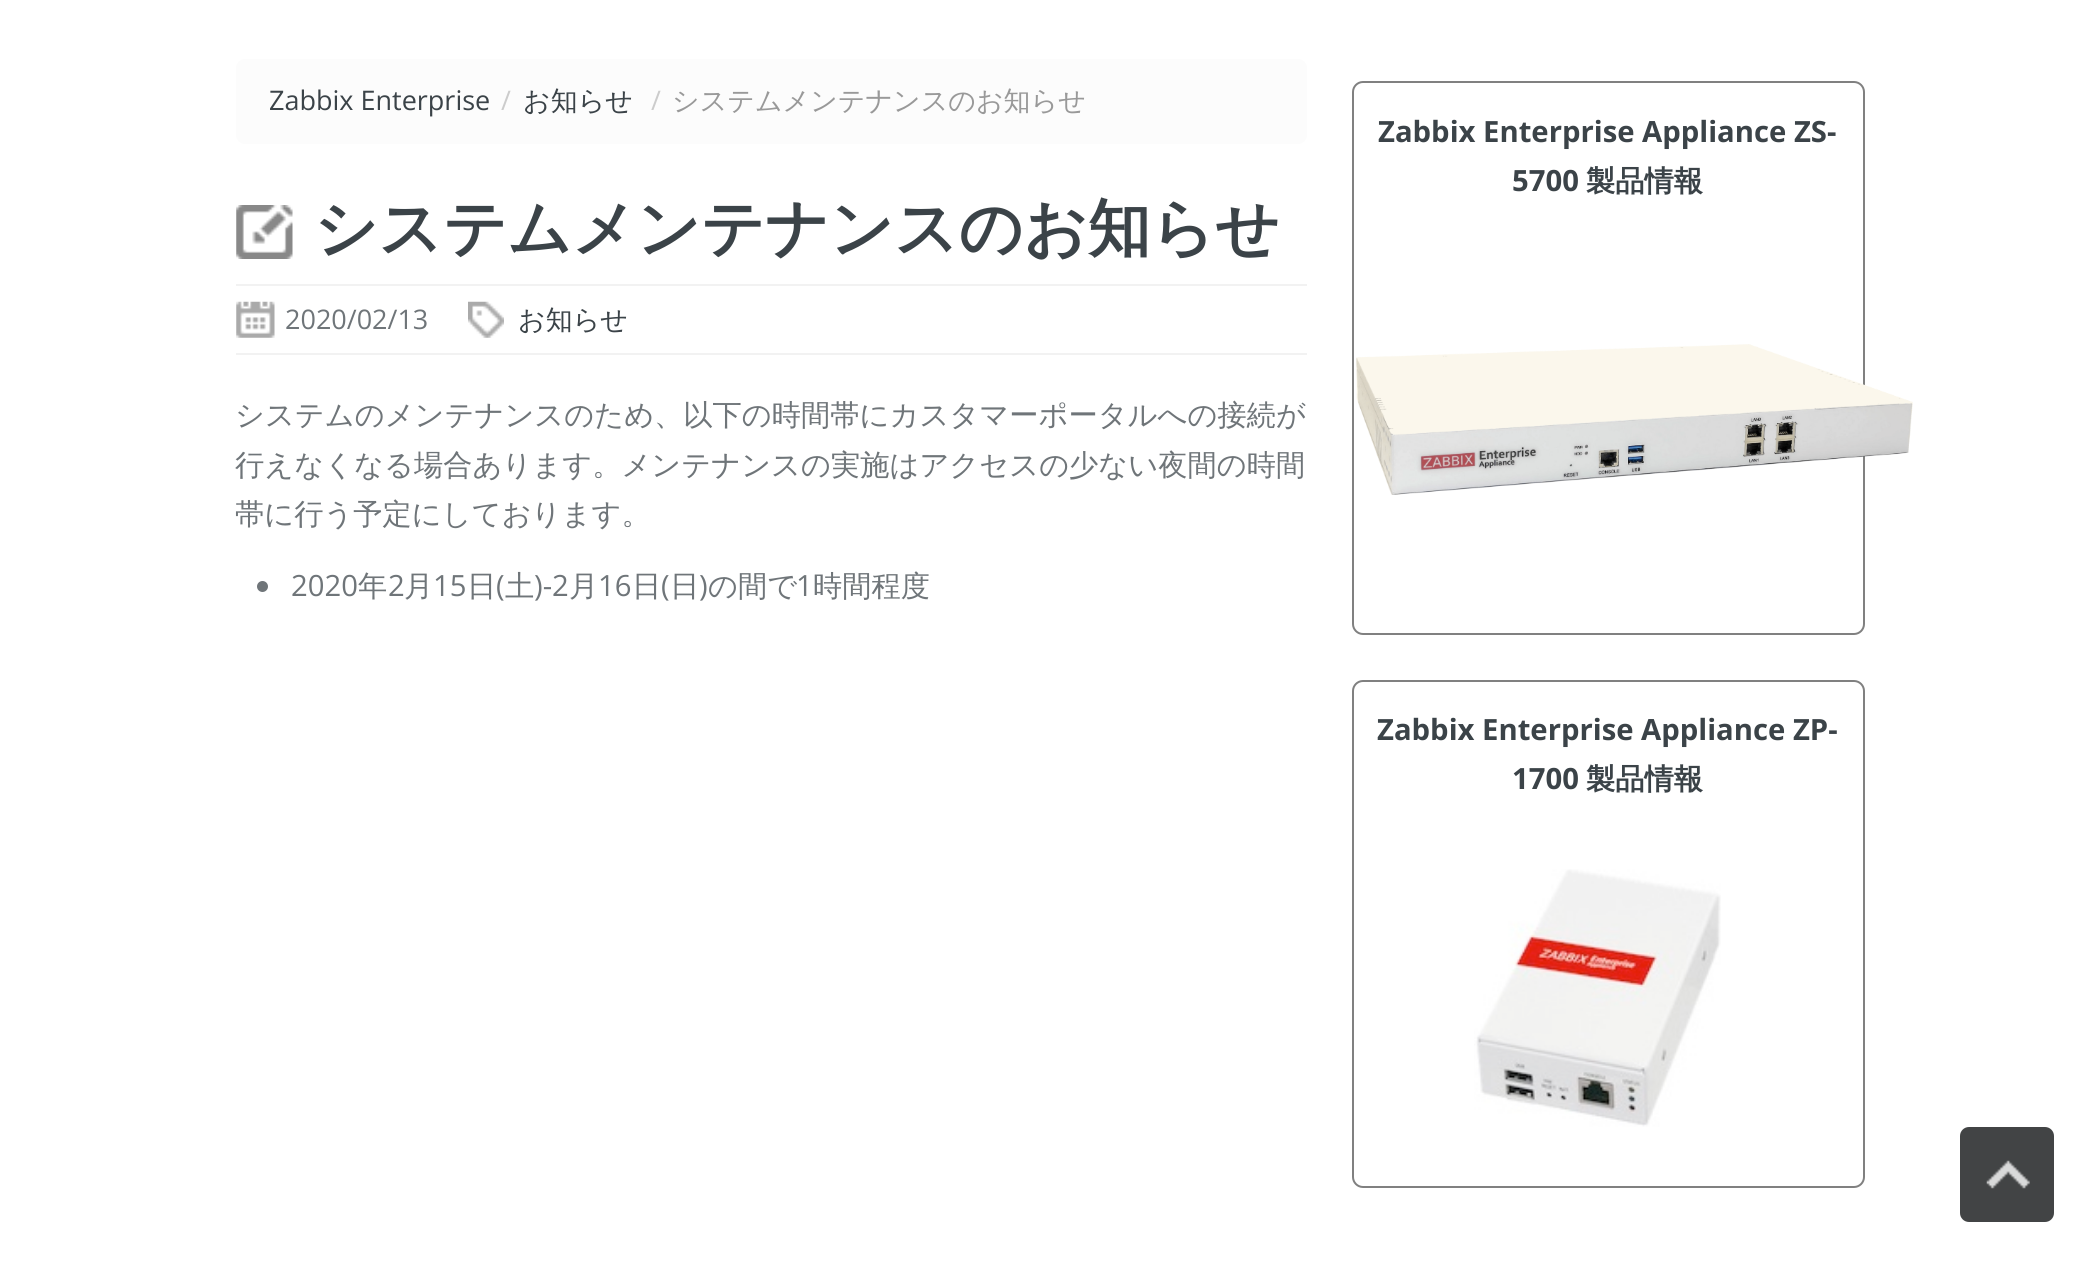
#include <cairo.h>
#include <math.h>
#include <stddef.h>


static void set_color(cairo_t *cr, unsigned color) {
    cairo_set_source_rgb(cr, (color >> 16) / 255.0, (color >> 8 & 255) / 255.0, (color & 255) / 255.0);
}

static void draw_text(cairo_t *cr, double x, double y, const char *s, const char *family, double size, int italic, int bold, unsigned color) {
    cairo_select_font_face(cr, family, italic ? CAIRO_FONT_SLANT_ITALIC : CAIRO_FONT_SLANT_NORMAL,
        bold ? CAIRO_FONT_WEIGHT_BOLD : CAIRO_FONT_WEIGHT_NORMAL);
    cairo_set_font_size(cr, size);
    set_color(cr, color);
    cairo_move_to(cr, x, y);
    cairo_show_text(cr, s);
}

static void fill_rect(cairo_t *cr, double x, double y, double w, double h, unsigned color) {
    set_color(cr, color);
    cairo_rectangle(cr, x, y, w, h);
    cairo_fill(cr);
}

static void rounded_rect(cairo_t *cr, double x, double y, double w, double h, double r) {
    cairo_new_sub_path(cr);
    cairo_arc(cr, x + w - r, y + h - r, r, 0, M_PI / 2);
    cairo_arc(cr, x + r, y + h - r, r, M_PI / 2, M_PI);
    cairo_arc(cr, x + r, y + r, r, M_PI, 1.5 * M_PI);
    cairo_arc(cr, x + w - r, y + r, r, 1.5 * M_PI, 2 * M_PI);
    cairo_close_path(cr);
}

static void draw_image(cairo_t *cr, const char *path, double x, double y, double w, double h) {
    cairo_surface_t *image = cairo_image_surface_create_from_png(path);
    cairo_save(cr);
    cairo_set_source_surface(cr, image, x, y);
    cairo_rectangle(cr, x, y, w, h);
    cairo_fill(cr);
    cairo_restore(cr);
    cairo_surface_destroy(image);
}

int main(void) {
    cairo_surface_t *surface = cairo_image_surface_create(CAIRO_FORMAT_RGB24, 2098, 1265);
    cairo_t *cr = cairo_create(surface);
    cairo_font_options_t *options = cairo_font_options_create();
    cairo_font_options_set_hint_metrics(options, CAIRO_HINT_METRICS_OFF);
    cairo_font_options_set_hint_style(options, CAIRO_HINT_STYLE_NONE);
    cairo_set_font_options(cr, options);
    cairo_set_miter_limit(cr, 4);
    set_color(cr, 0xFFFFFF);
    cairo_paint(cr);
    set_color(cr, 0xFCFCFC);
    rounded_rect(cr, 236, 59, 1071, 85, 9);
    cairo_fill(cr);
    draw_text(cr, 269, 110, "Zabbix Enterprise", "Open Sans", 27, 0, 0, 0x3B4348);
    draw_text(cr, 501, 110, "/", "Open Sans", 27, 0, 0, 0xCCCCCC);
    draw_text(cr, 523, 110, "お知らせ", "WenQuanYi Zen Hei Medium", 27, 0, 0, 0x3B4348);
    draw_text(cr, 651, 110, "/", "Open Sans", 27, 0, 0, 0xCCCCCC);
    draw_text(cr, 672, 110, "システムメンテナンスのお知らせ", "WenQuanYi Zen Hei Medium", 27, 0, 0, 0x999999);
    draw_image(cr, "assets/img1.png", 236, 205, 57, 54);
    draw_text(cr, 314, 250, "システムメンテナンスのお知らせ", "WenQuanYi Zen Hei", 63, 0, 1, 0x3B4348);
    fill_rect(cr, 236, 284, 1071, 2, 0xF2F2F2);
    fill_rect(cr, 236, 353, 1071, 2, 0xF2F2F2);
    draw_image(cr, "assets/img2.png", 236, 301, 39, 37);
    draw_text(cr, 285, 329, "2020/02/13", "Open Sans", 27, 0, 0, 0x6F7579);
    draw_image(cr, "assets/img3.png", 468, 301, 36, 37);
    draw_text(cr, 518, 329, "お知らせ", "WenQuanYi Zen Hei Medium", 27, 0, 0, 0x3B4348);
    draw_text(cr, 235, 425, "システムのメンテナンスのため、以下の時間帯にカスタマーポータルへの接続が", "WenQuanYi Zen Hei Medium", 29.25, 0, 0, 0x6F7579);
    draw_text(cr, 235, 475, "行えなくなる場合あります。メンテナンスの実施はアクセスの少ない夜間の時間", "WenQuanYi Zen Hei Medium", 29.25, 0, 0, 0x6F7579);
    draw_text(cr, 235, 524, "帯に行う予定にしております。", "WenQuanYi Zen Hei Medium", 29.25, 0, 0, 0x6F7579);
    draw_text(cr, 291, 596, "2020", "Open Sans", 29.25, 0, 0, 0x6F7579);
    draw_text(cr, 358, 596, "年", "WenQuanYi Zen Hei Medium", 29.25, 0, 0, 0x6F7579);
    draw_text(cr, 388, 596, "2", "Open Sans", 29.25, 0, 0, 0x6F7579);
    draw_text(cr, 404, 596, "月", "WenQuanYi Zen Hei Medium", 29.25, 0, 0, 0x6F7579);
    draw_text(cr, 433, 596, "15", "Open Sans", 29.25, 0, 0, 0x6F7579);
    draw_text(cr, 467, 596, "日 土", "WenQuanYi Zen Hei Medium", 29.25, 0, 0, 0x6F7579);
    draw_text(cr, 534, 596, ")-2", "Open Sans", 29.25, 0, 0, 0x6F7579);
    draw_text(cr, 569, 596, "月", "WenQuanYi Zen Hei Medium", 29.25, 0, 0, 0x6F7579);
    draw_text(cr, 598, 596, "16", "Open Sans", 29.25, 0, 0, 0x6F7579);
    draw_text(cr, 632, 596, "日 日 の間で", "WenQuanYi Zen Hei Medium", 29.25, 0, 0, 0x6F7579);
    draw_text(cr, 813, 596, "時間程度", "WenQuanYi Zen Hei Medium", 29.25, 0, 0, 0x6F7579);
    cairo_new_path(cr);
    cairo_arc(cr, 262.5, 586.5, 5.5, 0, 2 * M_PI);
    cairo_fill(cr);
    draw_text(cr, 496, 596, "(", "Open Sans", 29.25, 0, 0, 0x6F7579);
    draw_text(cr, 661, 596, "(", "Open Sans", 29.25, 0, 0, 0x6F7579);
    draw_text(cr, 699, 596, ")", "Open Sans", 29.25, 0, 0, 0x6F7579);
    draw_text(cr, 796, 596, "1", "Open Sans", 29.25, 0, 0, 0x6F7579);
    rounded_rect(cr, 1353, 82, 511, 552, 10);
    set_color(cr, 0x808080);
    cairo_stroke(cr);
    draw_text(cr, 1378, 142, "Zabbix Enterprise Appliance ZS-", "Open Sans", 29.25, 0, 1, 0x3B4348);
    draw_text(cr, 1512, 191, "5700", "Open Sans", 29.25, 0, 1, 0x3B4348);
    draw_text(cr, 1586, 191, "製品情報", "WenQuanYi Zen Hei", 29.25, 0, 1, 0x3B4348);
    draw_image(cr, "assets/img4.png", 1356, 344, 557, 151);
    rounded_rect(cr, 1353, 681, 511, 506, 10);
    set_color(cr, 0x808080);
    cairo_stroke(cr);
    draw_text(cr, 1377, 740, "Zabbix Enterprise Appliance ZP-", "Open Sans", 29.25, 0, 1, 0x3B4348);
    draw_text(cr, 1512, 789, "1700", "Open Sans", 29.25, 0, 1, 0x3B4348);
    draw_text(cr, 1586, 789, "製品情報", "WenQuanYi Zen Hei", 29.25, 0, 1, 0x3B4348);
    draw_image(cr, "assets/img5.png", 1474, 869, 247, 258);
    set_color(cr, 0x424445);
    rounded_rect(cr, 1960, 1127, 94, 95, 9);
    cairo_fill(cr);
    draw_image(cr, "assets/img6.png", 1986, 1160, 44, 29);
    cairo_surface_write_to_png(surface, "output.png");
    cairo_font_options_destroy(options);
    cairo_destroy(cr);
    cairo_surface_destroy(surface);
    return 0;
}
